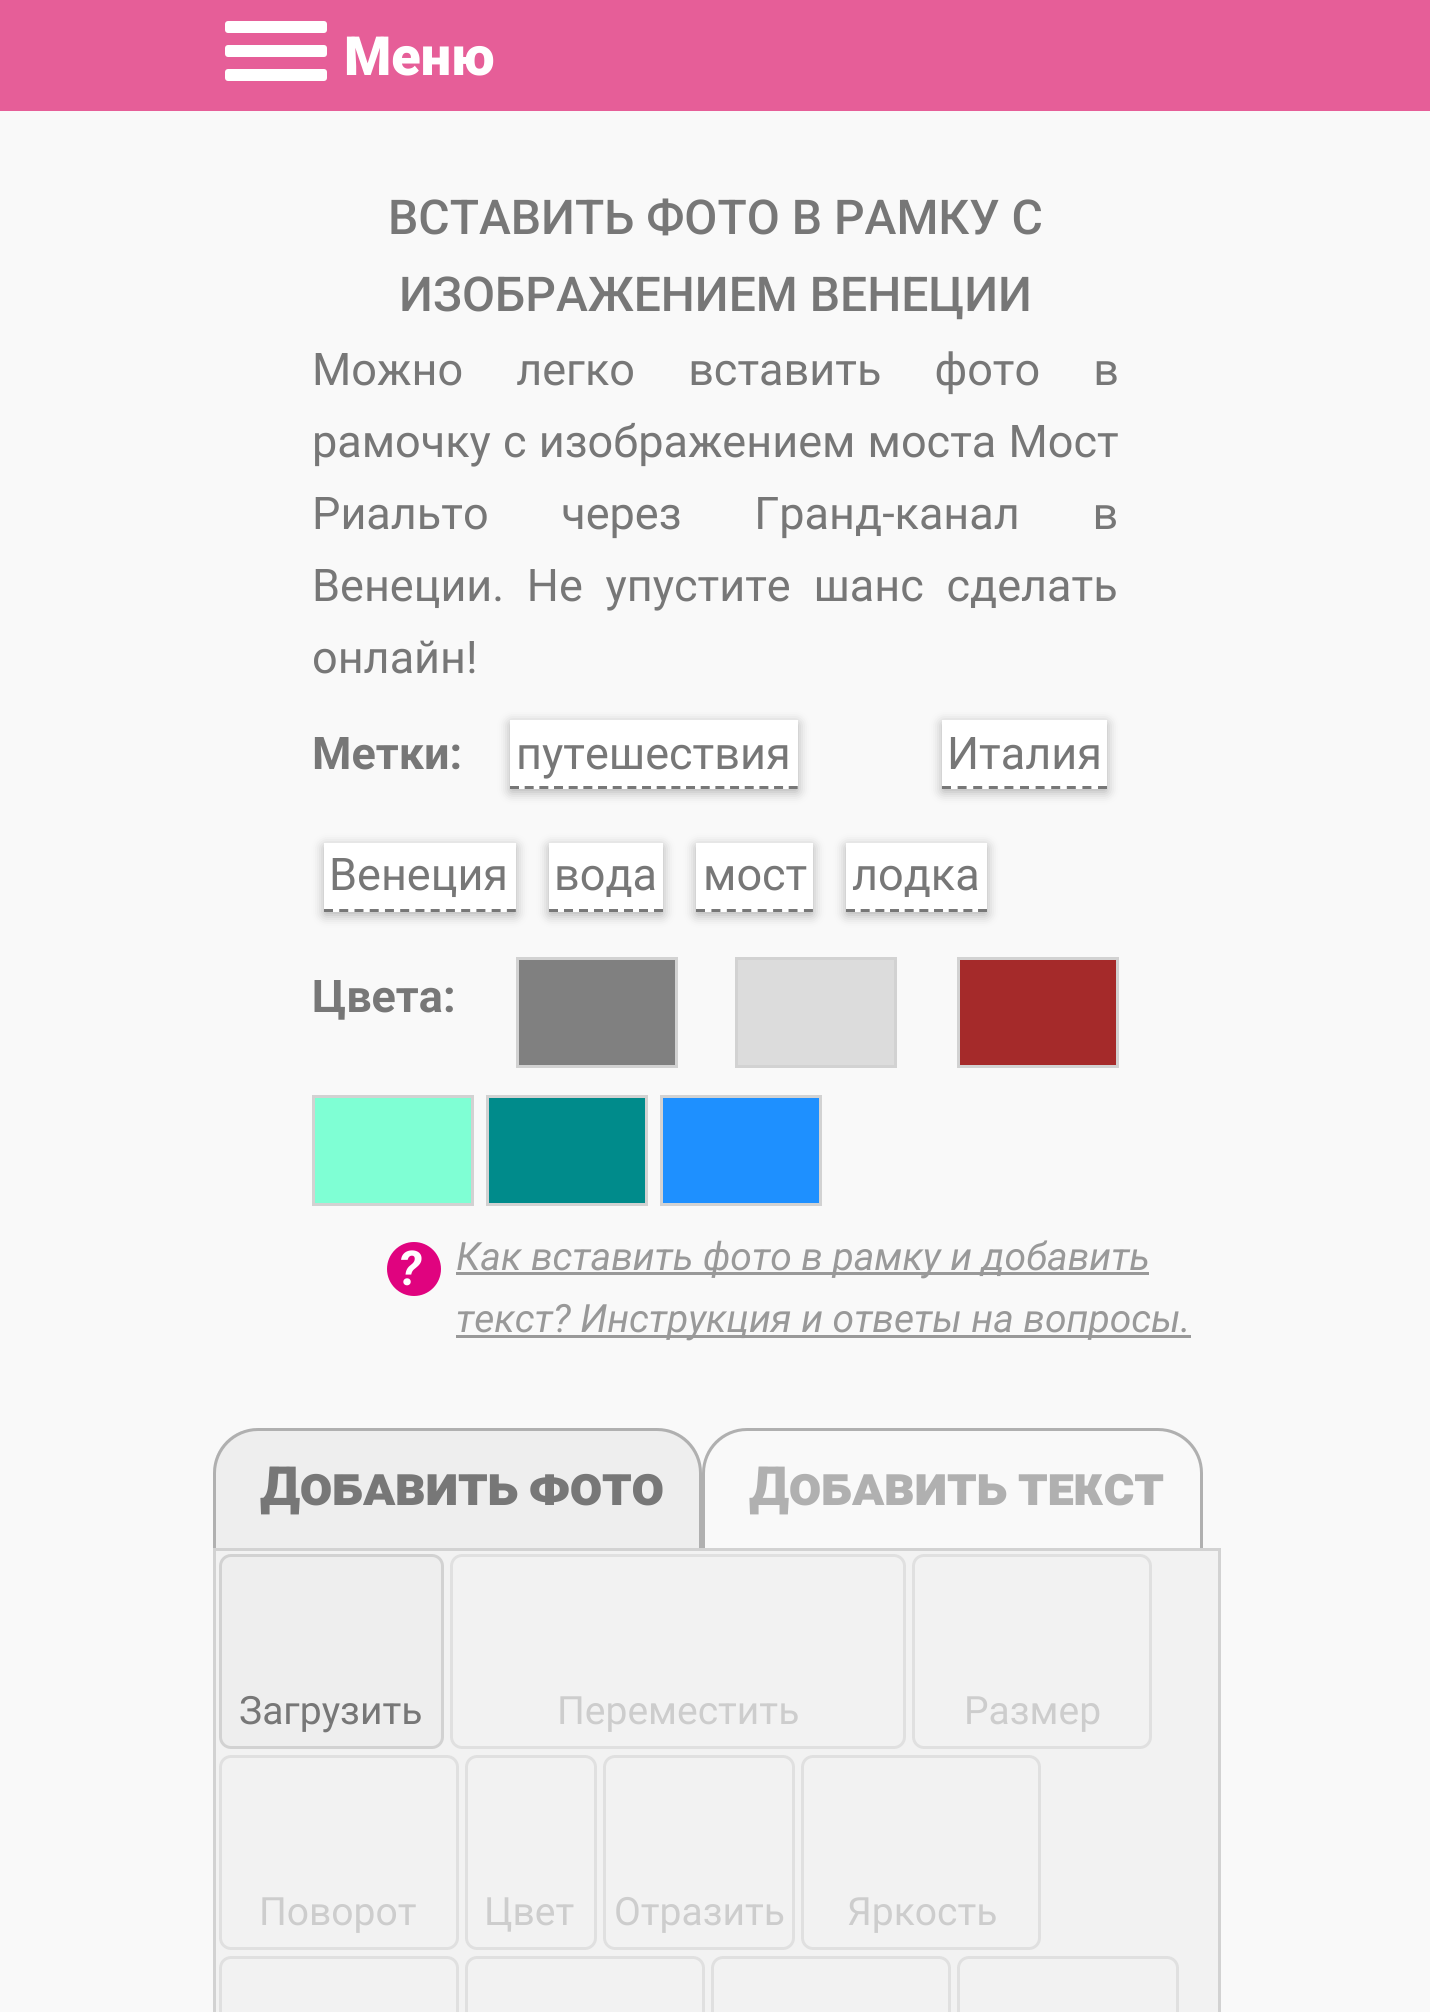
#include <cairo.h>
#include <math.h>
#include <stddef.h>


static void set_color(cairo_t *cr, unsigned color) {
    cairo_set_source_rgb(cr, (color >> 16) / 255.0, (color >> 8 & 255) / 255.0, (color & 255) / 255.0);
}

static void draw_text(cairo_t *cr, double x, double y, const char *s, const char *family, double size, int italic, int bold, unsigned color) {
    cairo_select_font_face(cr, family, italic ? CAIRO_FONT_SLANT_ITALIC : CAIRO_FONT_SLANT_NORMAL,
        bold ? CAIRO_FONT_WEIGHT_BOLD : CAIRO_FONT_WEIGHT_NORMAL);
    cairo_set_font_size(cr, size);
    set_color(cr, color);
    cairo_move_to(cr, x, y);
    cairo_show_text(cr, s);
}

static void draw_spaced(cairo_t *cr, double x, double y, const char *s, double letter, double word) {
    cairo_move_to(cr, x, y);
    while (*s) {
        char ch[5] = {0};
        int n = 0;
        do ch[n++] = *s++; while ((*s & 0xC0) == 0x80);
        cairo_show_text(cr, ch);
        cairo_rel_move_to(cr, letter + word * (*ch == ' '), 0);
    }
}

static void fill_rect(cairo_t *cr, double x, double y, double w, double h, unsigned color) {
    set_color(cr, color);
    cairo_rectangle(cr, x, y, w, h);
    cairo_fill(cr);
}

static void rounded_rect(cairo_t *cr, double x, double y, double w, double h, double r) {
    cairo_new_sub_path(cr);
    cairo_arc(cr, x + w - r, y + h - r, r, 0, M_PI / 2);
    cairo_arc(cr, x + r, y + h - r, r, M_PI / 2, M_PI);
    cairo_arc(cr, x + r, y + r, r, M_PI, 1.5 * M_PI);
    cairo_arc(cr, x + w - r, y + r, r, 1.5 * M_PI, 2 * M_PI);
    cairo_close_path(cr);
}

static void draw_shadow(cairo_t *cr, double x, double y, double w, double h, double r, double blur, double alpha) {
    cairo_push_group_with_content(cr, CAIRO_CONTENT_ALPHA);
    cairo_set_operator(cr, CAIRO_OPERATOR_SOURCE);
    for (int i = 15; i >= -15 && fmin(w, h) + blur * i / 3 > 0; i -= 2) {
        double e = blur * i / 6;
        cairo_set_source_rgba(cr, 0, 0, 0, alpha * erfc((i - 1) / 8.5) / 2);
        rounded_rect(cr, x - e, y - e, w + 2 * e, h + 2 * e, fmax(0, fmin(r + e + blur * .6, fmin(w, h) / 2 + e)));
        cairo_fill(cr);
    }
    cairo_pattern_t *soft = cairo_pop_group(cr);
    cairo_mask(cr, soft);
    cairo_pattern_destroy(soft);
}

int main(void) {
    cairo_surface_t *surface = cairo_image_surface_create(CAIRO_FORMAT_RGB24, 1430, 2012);
    cairo_t *cr = cairo_create(surface);
    cairo_font_options_t *options = cairo_font_options_create();
    cairo_font_options_set_hint_metrics(options, CAIRO_HINT_METRICS_OFF);
    cairo_font_options_set_hint_style(options, CAIRO_HINT_STYLE_NONE);
    cairo_set_font_options(cr, options);
    cairo_set_miter_limit(cr, 4);
    set_color(cr, 0xF9F9F9);
    cairo_paint(cr);
    fill_rect(cr, 0, 0, 1430, 111, 0xE65E98);
    set_color(cr, 0xFFFFFF);
    rounded_rect(cr, 225, 21, 102, 12, 3);
    cairo_fill(cr);
    rounded_rect(cr, 225, 45, 102, 12, 3);
    cairo_fill(cr);
    rounded_rect(cr, 225, 69, 102, 12, 3);
    cairo_fill(cr);
    draw_text(cr, 344, 75, "Меню", "Roboto Black", 54, 0, 0, 0xFFFFFF);
    draw_text(cr, 388, 234, "ВСТАВИТЬ ФОТО В РАМКУ С", "Roboto Medium", 48, 0, 0, 0x777777);
    draw_text(cr, 399, 311, "ИЗОБРАЖЕНИЕМ ВЕНЕЦИИ", "Roboto Medium", 48, 0, 0, 0x777777);
    cairo_select_font_face(cr, "Roboto", CAIRO_FONT_SLANT_NORMAL, CAIRO_FONT_WEIGHT_NORMAL);
    cairo_set_font_size(cr, 45);
    draw_spaced(cr, 312, 385, "Можно легко вставить фото в", 0, 42);
    draw_spaced(cr, 312, 457, "рамочку с изображением моста Мост", 0, 1);
    draw_spaced(cr, 312, 529, "Риальто через Гранд-канал в", 0, 61.5);
    draw_spaced(cr, 312, 601, "Венеции. Не упустите шанс сделать", 0, 11.5);
    draw_text(cr, 312, 673, "онлайн!", "Roboto", 45, 0, 0, 0x777777);
    draw_text(cr, 312, 769, "Метки:", "Roboto", 45, 0, 1, 0x777777);
    set_color(cr, 0x000000);
    draw_shadow(cr, 510, 723, 288, 69, 0, 6, 0.3);
    fill_rect(cr, 510, 720, 288, 69, 0xFFFFFF);
    draw_text(cr, 516, 769, "путешествия", "Roboto", 45, 0, 0, 0x777777);
    cairo_new_path(cr);
    cairo_move_to(cr, 510, 787.5);
    cairo_line_to(cr, 798, 787.5);
    cairo_set_line_width(cr, 3);
    cairo_set_dash(cr, (double[]){9, 5.67}, 2, 0);
    cairo_stroke(cr);
    set_color(cr, 0x000000);
    draw_shadow(cr, 942, 723, 165, 69, 0, 6, 0.3);
    fill_rect(cr, 942, 720, 165, 69, 0xFFFFFF);
    draw_text(cr, 947, 769, "Италия", "Roboto", 45, 0, 0, 0x777777);
    cairo_new_path(cr);
    cairo_move_to(cr, 942, 787.5);
    cairo_line_to(cr, 1107, 787.5);
    cairo_set_dash(cr, (double[]){9, 6.6}, 2, 0);
    cairo_stroke(cr);
    set_color(cr, 0x000000);
    draw_shadow(cr, 324, 846, 192, 69, 0, 6, 0.3);
    fill_rect(cr, 324, 843, 192, 69, 0xFFFFFF);
    draw_text(cr, 329, 890, "Венеция", "Roboto", 45, 0, 0, 0x777777);
    cairo_new_path(cr);
    cairo_move_to(cr, 324, 910.5);
    cairo_line_to(cr, 516, 910.5);
    cairo_set_dash(cr, (double[]){9, 6.24}, 2, 0);
    cairo_stroke(cr);
    set_color(cr, 0x000000);
    draw_shadow(cr, 549, 846, 114, 69, 0, 6, 0.3);
    fill_rect(cr, 549, 843, 114, 69, 0xFFFFFF);
    draw_text(cr, 554, 890, "вода", "Roboto", 45, 0, 0, 0x777777);
    cairo_new_path(cr);
    cairo_move_to(cr, 549, 910.5);
    cairo_line_to(cr, 663, 910.5);
    cairo_set_dash(cr, (double[]){9, 6}, 2, 0);
    cairo_stroke(cr);
    set_color(cr, 0x000000);
    draw_shadow(cr, 696, 846, 117, 69, 0, 6, 0.3);
    fill_rect(cr, 696, 843, 117, 69, 0xFFFFFF);
    draw_text(cr, 703, 890, "мост", "Roboto", 45, 0, 0, 0x777777);
    cairo_new_path(cr);
    cairo_move_to(cr, 696, 910.5);
    cairo_line_to(cr, 813, 910.5);
    cairo_set_dash(cr, (double[]){9, 6.42}, 2, 0);
    cairo_stroke(cr);
    set_color(cr, 0x000000);
    draw_shadow(cr, 846, 846, 141, 69, 0, 6, 0.3);
    fill_rect(cr, 846, 843, 141, 69, 0xFFFFFF);
    draw_text(cr, 852, 890, "лодка", "Roboto", 45, 0, 0, 0x777777);
    cairo_new_path(cr);
    cairo_move_to(cr, 846, 910.5);
    cairo_line_to(cr, 987, 910.5);
    cairo_set_dash(cr, (double[]){9, 5.67}, 2, 0);
    cairo_stroke(cr);
    draw_text(cr, 312, 1012, "Цвета:", "Roboto", 45, 0, 1, 0x777777);
    set_color(cr, 0x808080);
    cairo_rectangle(cr, 517.5, 958.5, 159, 108);
    cairo_fill_preserve(cr);
    set_color(cr, 0xD2D2D2);
    cairo_set_dash(cr, NULL, 0, 0);
    cairo_stroke(cr);
    set_color(cr, 0xDCDCDC);
    cairo_rectangle(cr, 736.5, 958.5, 159, 108);
    cairo_fill_preserve(cr);
    set_color(cr, 0xD2D2D2);
    cairo_stroke(cr);
    set_color(cr, 0xA52A2A);
    cairo_rectangle(cr, 958.5, 958.5, 159, 108);
    cairo_fill_preserve(cr);
    set_color(cr, 0xD2D2D2);
    cairo_stroke(cr);
    set_color(cr, 0x7FFFD4);
    cairo_rectangle(cr, 313.5, 1096.5, 159, 108);
    cairo_fill_preserve(cr);
    set_color(cr, 0xD2D2D2);
    cairo_stroke(cr);
    set_color(cr, 0x008B8B);
    cairo_rectangle(cr, 487.5, 1096.5, 159, 108);
    cairo_fill_preserve(cr);
    set_color(cr, 0xD2D2D2);
    cairo_stroke(cr);
    set_color(cr, 0x1E90FF);
    cairo_rectangle(cr, 661.5, 1096.5, 159, 108);
    cairo_fill_preserve(cr);
    set_color(cr, 0xD2D2D2);
    cairo_stroke(cr);
    set_color(cr, 0xE0037F);
    cairo_arc(cr, 414, 1269, 27, 0, 2 * M_PI);
    cairo_fill(cr);
    draw_text(cr, 398, 1285, "?", "Roboto", 48, 1, 1, 0xFFFFFF);
    fill_rect(cr, 456, 1272, 693, 3, 0x999999);
    draw_text(cr, 456, 1270, "Как вставить фото в рамку и добавить", "Roboto", 39, 1, 0, 0x999999);
    fill_rect(cr, 456, 1335, 735, 3, 0x999999);
    draw_text(cr, 456, 1332, "текст? Инструкция и ответы на вопросы.", "Roboto", 39, 1, 0, 0x999999);
    set_color(cr, 0xEEEEEE);
    cairo_new_path(cr);
    cairo_move_to(cr, 258, 1428);
    cairo_line_to(cr, 657, 1428);
    cairo_curve_to(cr, 682, 1428, 702, 1448, 702, 1473);
    cairo_line_to(cr, 702, 1548);
    cairo_line_to(cr, 213, 1548);
    cairo_line_to(cr, 213, 1473);
    cairo_curve_to(cr, 213, 1448, 233, 1428, 258, 1428);
    cairo_close_path(cr);
    cairo_fill(cr);
    set_color(cr, 0xB0B0B0);
    cairo_set_fill_rule(cr, CAIRO_FILL_RULE_EVEN_ODD);
    cairo_new_path(cr);
    cairo_move_to(cr, 258, 1428);
    cairo_line_to(cr, 657, 1428);
    cairo_curve_to(cr, 682, 1428, 702, 1448, 702, 1473);
    cairo_line_to(cr, 702, 1548);
    cairo_line_to(cr, 213, 1548);
    cairo_line_to(cr, 213, 1473);
    cairo_curve_to(cr, 213, 1448, 233, 1428, 258, 1428);
    cairo_close_path(cr);
    cairo_move_to(cr, 258, 1431);
    cairo_line_to(cr, 657, 1431);
    cairo_curve_to(cr, 680, 1431, 699, 1450, 699, 1473);
    cairo_line_to(cr, 699, 1548);
    cairo_line_to(cr, 216, 1548);
    cairo_line_to(cr, 216, 1473);
    cairo_curve_to(cr, 216, 1450, 235, 1431, 258, 1431);
    cairo_close_path(cr);
    cairo_fill(cr);
    cairo_select_font_face(cr, "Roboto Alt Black", CAIRO_FONT_SLANT_NORMAL, CAIRO_FONT_WEIGHT_NORMAL);
    cairo_set_font_size(cr, 54);
    set_color(cr, 0x777777);
    draw_spaced(cr, 260, 1505, "Добавить фото", 0, -3);
    set_color(cr, 0xB0B0B0);
    cairo_new_path(cr);
    cairo_move_to(cr, 747, 1428);
    cairo_line_to(cr, 1158, 1428);
    cairo_curve_to(cr, 1183, 1428, 1203, 1448, 1203, 1473);
    cairo_line_to(cr, 1203, 1548);
    cairo_line_to(cr, 702, 1548);
    cairo_line_to(cr, 702, 1473);
    cairo_curve_to(cr, 702, 1448, 722, 1428, 747, 1428);
    cairo_close_path(cr);
    cairo_move_to(cr, 747, 1431);
    cairo_line_to(cr, 1158, 1431);
    cairo_curve_to(cr, 1181, 1431, 1200, 1450, 1200, 1473);
    cairo_line_to(cr, 1200, 1548);
    cairo_line_to(cr, 705, 1548);
    cairo_line_to(cr, 705, 1473);
    cairo_curve_to(cr, 705, 1450, 724, 1431, 747, 1431);
    cairo_close_path(cr);
    cairo_fill(cr);
    draw_spaced(cr, 749, 1505, "Добавить текст", 0, -3);
    set_color(cr, 0xF2F2F2);
    cairo_rectangle(cr, 214.5, 1549.5, 1005, 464);
    cairo_fill_preserve(cr);
    set_color(cr, 0xD2D2D2);
    cairo_stroke(cr);
    set_color(cr, 0xEEEEEE);
    rounded_rect(cr, 220.5, 1555.5, 222, 192, 10.5);
    cairo_fill_preserve(cr);
    set_color(cr, 0xD2D2D2);
    cairo_stroke(cr);
    draw_text(cr, 239, 1724, "Загрузить", "Roboto", 39, 0, 0, 0x777777);
    rounded_rect(cr, 451.5, 1555.5, 453, 192, 10.5);
    set_color(cr, 0xE0E0E0);
    cairo_stroke(cr);
    draw_text(cr, 557, 1724, "Переместить", "Roboto", 39, 0, 0, 0xCDCDCD);
    rounded_rect(cr, 913.5, 1555.5, 237, 192, 10.5);
    set_color(cr, 0xE0E0E0);
    cairo_stroke(cr);
    draw_text(cr, 964, 1724, "Размер", "Roboto", 39, 0, 0, 0xCDCDCD);
    rounded_rect(cr, 220.5, 1756.5, 237, 192, 10.5);
    set_color(cr, 0xE0E0E0);
    cairo_stroke(cr);
    draw_text(cr, 259, 1925, "Поворот", "Roboto", 39, 0, 0, 0xCDCDCD);
    rounded_rect(cr, 466.5, 1756.5, 129, 192, 10.5);
    set_color(cr, 0xE0E0E0);
    cairo_stroke(cr);
    draw_text(cr, 484, 1925, "Цвет", "Roboto", 39, 0, 0, 0xCDCDCD);
    rounded_rect(cr, 604.5, 1756.5, 189, 192, 10.5);
    set_color(cr, 0xE0E0E0);
    cairo_stroke(cr);
    draw_text(cr, 614, 1925, "Отразить", "Roboto", 39, 0, 0, 0xCDCDCD);
    rounded_rect(cr, 802.5, 1756.5, 237, 192, 10.5);
    set_color(cr, 0xE0E0E0);
    cairo_stroke(cr);
    draw_text(cr, 847, 1925, "Яркость", "Roboto", 39, 0, 0, 0xCDCDCD);
    rounded_rect(cr, 220.5, 1957.5, 237, 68, 10.5);
    set_color(cr, 0xE0E0E0);
    cairo_stroke(cr);
    rounded_rect(cr, 466.5, 1957.5, 237, 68, 10.5);
    cairo_stroke(cr);
    rounded_rect(cr, 712.5, 1957.5, 237, 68, 10.5);
    cairo_stroke(cr);
    rounded_rect(cr, 958.5, 1957.5, 219, 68, 10.5);
    cairo_stroke(cr);
    cairo_surface_write_to_png(surface, "output.png");
    cairo_font_options_destroy(options);
    cairo_destroy(cr);
    cairo_surface_destroy(surface);
    return 0;
}
